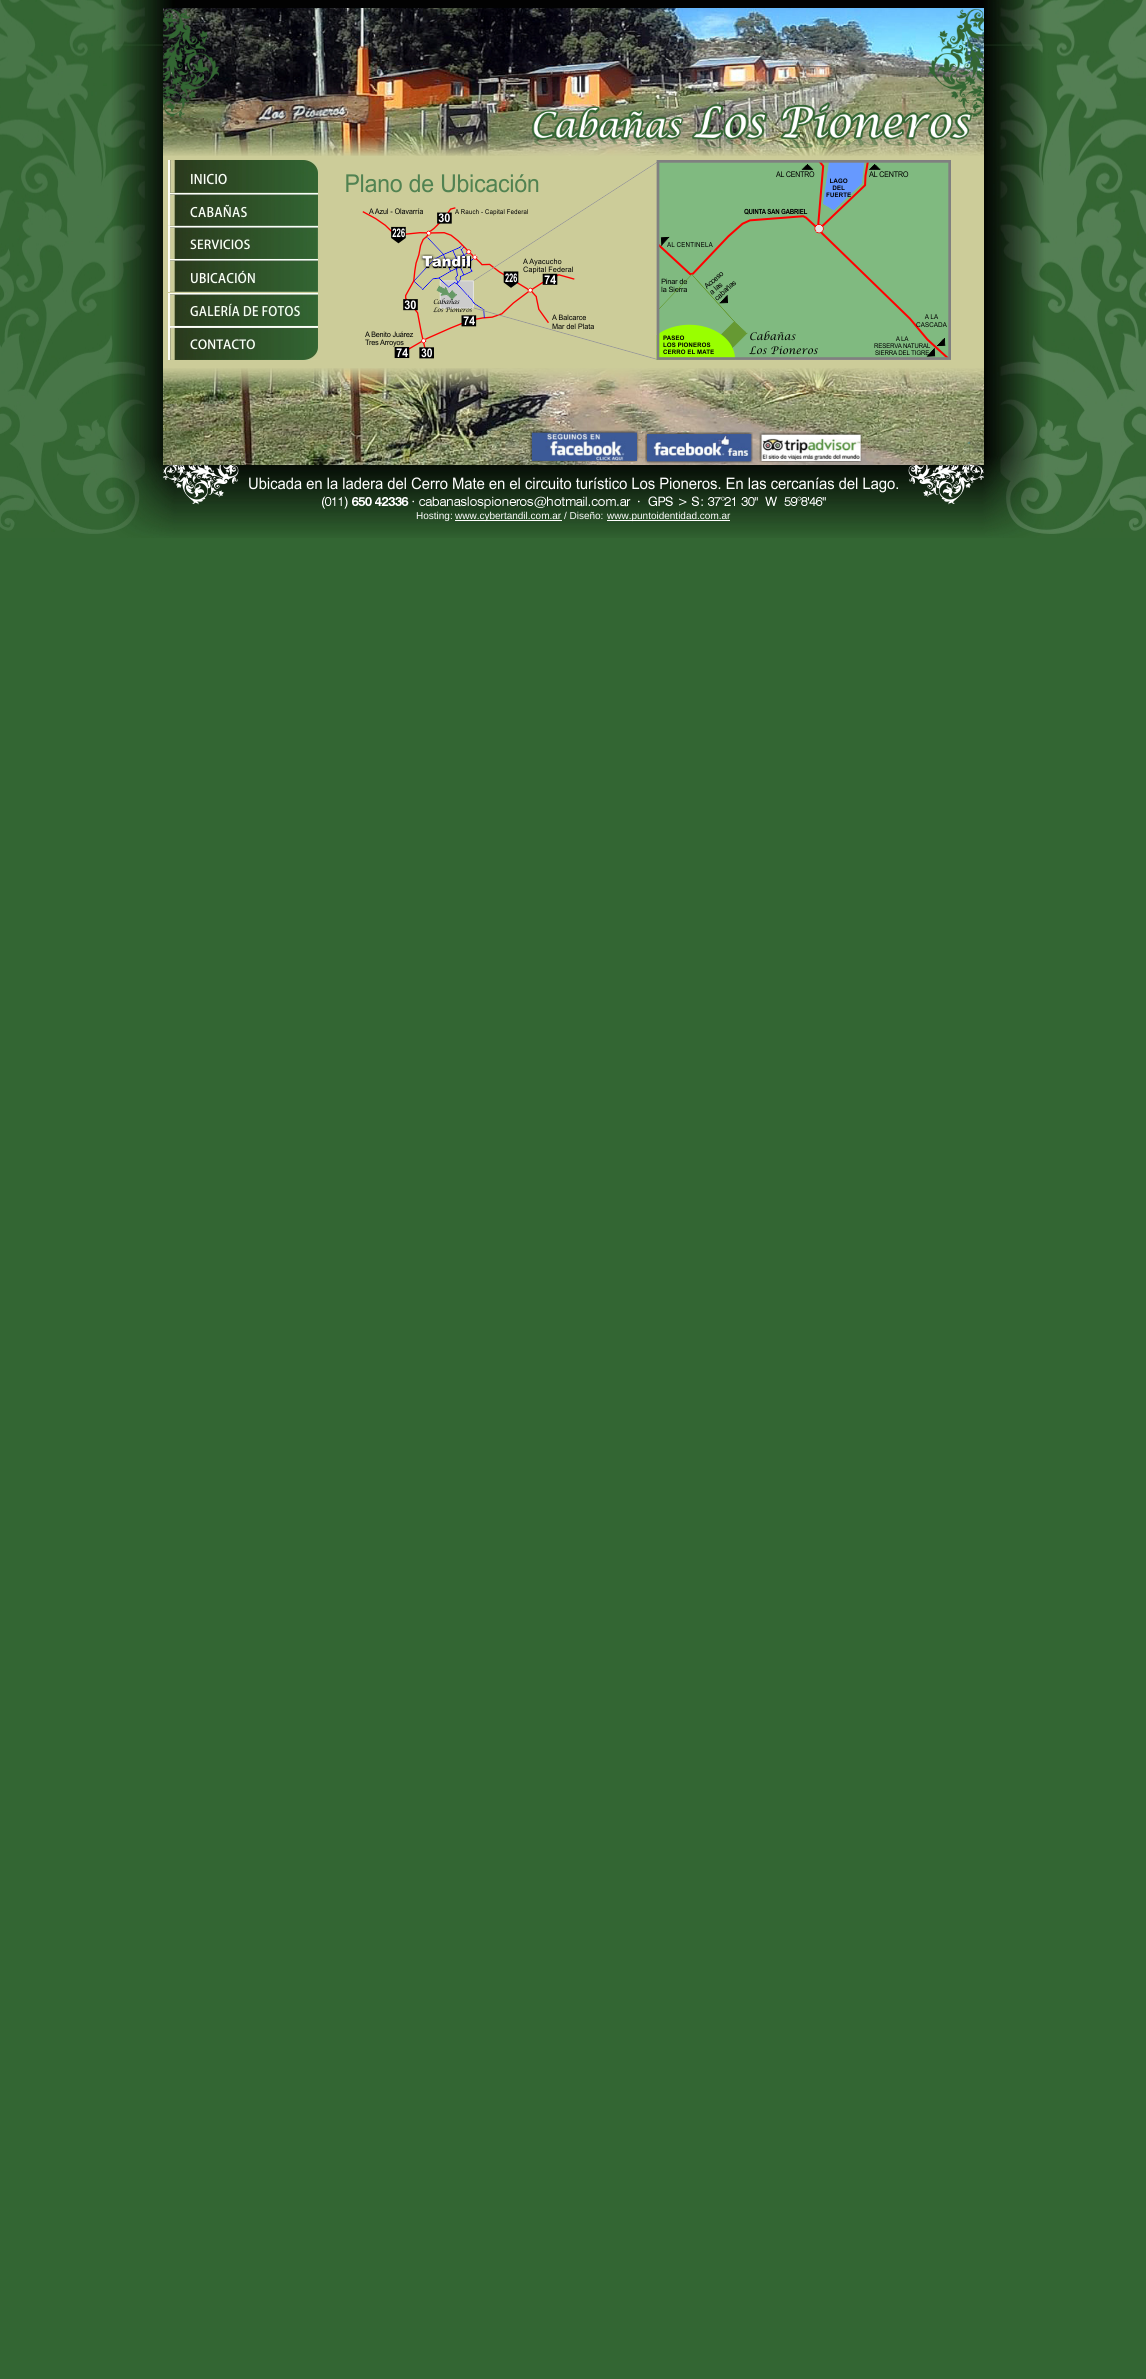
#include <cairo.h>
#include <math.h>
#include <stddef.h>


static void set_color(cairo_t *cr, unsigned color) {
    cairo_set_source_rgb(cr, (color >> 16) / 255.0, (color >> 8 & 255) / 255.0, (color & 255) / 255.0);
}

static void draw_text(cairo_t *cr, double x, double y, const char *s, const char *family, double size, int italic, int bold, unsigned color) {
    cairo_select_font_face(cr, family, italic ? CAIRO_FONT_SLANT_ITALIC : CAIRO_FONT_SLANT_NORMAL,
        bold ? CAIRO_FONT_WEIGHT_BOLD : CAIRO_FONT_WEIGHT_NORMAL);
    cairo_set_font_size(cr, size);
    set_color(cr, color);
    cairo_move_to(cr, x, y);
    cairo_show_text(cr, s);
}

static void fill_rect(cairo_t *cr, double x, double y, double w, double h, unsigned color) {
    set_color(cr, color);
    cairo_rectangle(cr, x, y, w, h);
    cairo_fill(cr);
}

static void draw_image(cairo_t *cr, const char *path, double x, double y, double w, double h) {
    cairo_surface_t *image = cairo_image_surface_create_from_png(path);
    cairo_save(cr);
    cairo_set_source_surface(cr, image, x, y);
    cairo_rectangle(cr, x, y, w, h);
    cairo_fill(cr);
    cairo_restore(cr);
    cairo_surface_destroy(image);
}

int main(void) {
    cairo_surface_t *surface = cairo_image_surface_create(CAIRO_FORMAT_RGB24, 1146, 2379);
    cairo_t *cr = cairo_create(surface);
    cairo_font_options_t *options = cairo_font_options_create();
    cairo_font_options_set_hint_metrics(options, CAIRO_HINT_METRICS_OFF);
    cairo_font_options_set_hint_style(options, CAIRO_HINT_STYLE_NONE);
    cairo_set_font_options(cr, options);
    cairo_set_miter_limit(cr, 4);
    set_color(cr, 0x336633);
    cairo_paint(cr);
    draw_image(cr, "assets/img1.png", 0, 0, 1146, 538);
    fill_rect(cr, 163, 8, 821, 152, 0xCCCC99);
    draw_image(cr, "assets/img2.png", 163, 8, 821, 148);
    fill_rect(cr, 163, 160, 5, 200, 0xCCCC99);
    draw_image(cr, "assets/img3.png", 168, 160, 150, 33);
    fill_rect(cr, 318, 160, 666, 200, 0xCCCC99);
    draw_image(cr, "assets/img4.png", 346, 160, 605, 200);
    draw_image(cr, "assets/img5.png", 168, 193, 150, 33);
    draw_image(cr, "assets/img6.png", 168, 226, 150, 33);
    fill_rect(cr, 168, 292, 150, 1, 0xCCCC99);
    draw_image(cr, "assets/img7.png", 168, 259, 150, 33);
    draw_image(cr, "assets/img8.png", 168, 293, 150, 33);
    draw_image(cr, "assets/img9.png", 168, 326, 150, 34);
    fill_rect(cr, 163, 360, 821, 33, 0xCCCC99);
    draw_image(cr, "assets/img10.png", 163, 368, 821, 97);
    draw_image(cr, "assets/img11.png", 163, 465, 821, 44);
    draw_text(cr, 416, 519, "Hosting:", "Liberation Sans", 10, 0, 0, 0xFFFFFF);
    fill_rect(cr, 455, 520, 107, 1, 0xFFFFFF);
    draw_text(cr, 455, 519, "www.cybertandil.com.ar / Diseño:", "Liberation Sans", 10, 0, 0, 0xFFFFFF);
    fill_rect(cr, 607, 520, 123, 1, 0xFFFFFF);
    draw_text(cr, 607, 519, "www.puntoidentidad.com.ar", "Liberation Sans", 10, 0, 0, 0xFFFFFF);
    cairo_surface_write_to_png(surface, "output.png");
    cairo_font_options_destroy(options);
    cairo_destroy(cr);
    cairo_surface_destroy(surface);
    return 0;
}
